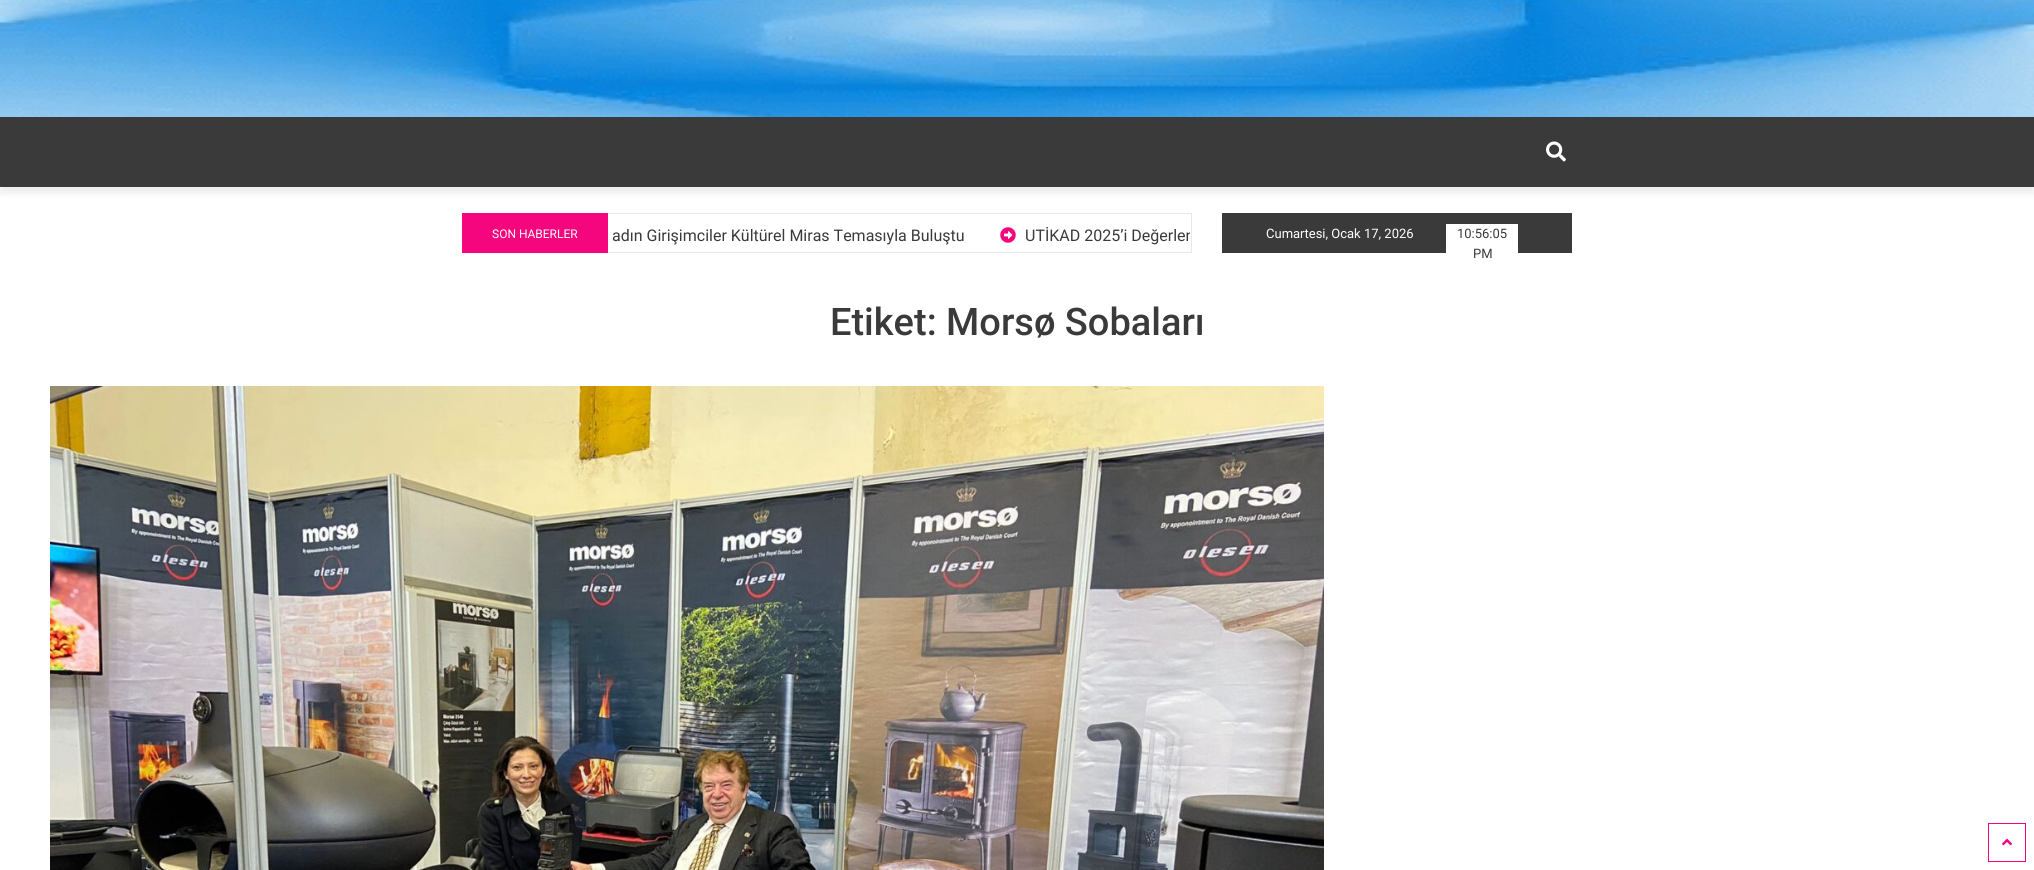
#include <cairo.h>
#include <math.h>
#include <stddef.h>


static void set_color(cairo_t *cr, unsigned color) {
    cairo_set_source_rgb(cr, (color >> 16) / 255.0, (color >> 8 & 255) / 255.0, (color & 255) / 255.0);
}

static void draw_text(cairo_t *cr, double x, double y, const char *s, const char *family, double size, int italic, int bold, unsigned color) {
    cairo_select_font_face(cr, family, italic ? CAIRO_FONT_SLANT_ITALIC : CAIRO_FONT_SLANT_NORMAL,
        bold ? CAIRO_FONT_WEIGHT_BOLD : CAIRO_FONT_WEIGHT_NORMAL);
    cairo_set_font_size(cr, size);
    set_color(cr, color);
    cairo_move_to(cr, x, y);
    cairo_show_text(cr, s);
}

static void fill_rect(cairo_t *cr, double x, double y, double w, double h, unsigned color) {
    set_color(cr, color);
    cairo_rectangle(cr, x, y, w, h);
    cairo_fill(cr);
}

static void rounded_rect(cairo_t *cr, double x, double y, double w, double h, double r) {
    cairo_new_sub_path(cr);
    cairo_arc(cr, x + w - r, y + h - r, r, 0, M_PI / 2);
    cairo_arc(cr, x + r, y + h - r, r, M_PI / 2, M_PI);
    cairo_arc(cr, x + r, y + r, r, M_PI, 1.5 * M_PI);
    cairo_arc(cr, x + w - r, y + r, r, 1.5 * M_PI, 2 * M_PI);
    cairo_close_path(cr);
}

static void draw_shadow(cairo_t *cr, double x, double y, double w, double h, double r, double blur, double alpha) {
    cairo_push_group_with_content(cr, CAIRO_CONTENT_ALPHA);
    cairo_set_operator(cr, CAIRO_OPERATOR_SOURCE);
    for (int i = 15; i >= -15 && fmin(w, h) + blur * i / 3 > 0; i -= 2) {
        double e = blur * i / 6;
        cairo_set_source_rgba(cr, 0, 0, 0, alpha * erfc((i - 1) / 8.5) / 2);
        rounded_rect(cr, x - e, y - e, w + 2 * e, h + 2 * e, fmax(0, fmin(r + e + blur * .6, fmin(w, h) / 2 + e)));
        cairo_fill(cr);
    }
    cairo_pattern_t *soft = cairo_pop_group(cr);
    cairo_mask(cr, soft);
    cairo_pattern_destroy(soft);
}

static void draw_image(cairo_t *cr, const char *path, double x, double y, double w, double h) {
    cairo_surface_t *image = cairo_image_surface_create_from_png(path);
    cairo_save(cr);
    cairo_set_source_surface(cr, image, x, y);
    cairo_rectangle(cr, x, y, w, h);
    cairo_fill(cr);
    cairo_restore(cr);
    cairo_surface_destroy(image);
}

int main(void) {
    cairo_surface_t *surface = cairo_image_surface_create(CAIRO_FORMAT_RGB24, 2034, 870);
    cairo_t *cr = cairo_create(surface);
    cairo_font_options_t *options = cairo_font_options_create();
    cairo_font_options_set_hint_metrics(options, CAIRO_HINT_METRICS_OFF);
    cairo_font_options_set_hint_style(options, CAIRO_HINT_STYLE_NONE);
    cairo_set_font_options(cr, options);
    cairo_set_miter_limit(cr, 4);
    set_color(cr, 0xFFFFFF);
    cairo_paint(cr);
    set_color(cr, 0x000000);
    draw_shadow(cr, 0, -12, 2034, 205, 0, 4, 0.08);
    draw_image(cr, "assets/img1.png", 0, 0, 2034, 117);
    fill_rect(cr, 0, 117, 2034, 70, 0x3A3A3A);
    draw_image(cr, "assets/img2.png", 1546, 141, 20, 21);
    cairo_rectangle(cr, 462.5, 213.5, 729, 39);
    set_color(cr, 0xE9E9E9);
    cairo_set_line_width(cr, 1);
    cairo_stroke(cr);
    fill_rect(cr, 462, 213, 146, 40, 0xF5067E);
    draw_text(cr, 492, 238, "SON HABERLER", "Roboto", 12, 0, 0, 0xFFFFFF);
    draw_text(cr, 612, 241, "adın Girişimciler Kültürel Miras Temasıyla Buluştu", "Roboto", 16, 0, 0, 0x3A3A3A);
    draw_image(cr, "assets/img3.png", 1000, 227, 16, 16);
    cairo_save(cr);
    cairo_rectangle(cr, 462, 213, 728, 40);
    cairo_clip(cr);
    draw_text(cr, 1025, 241, "UTİKAD 2025’i Değerlen", "Roboto", 16, 0, 0, 0x3A3A3A);
    cairo_restore(cr);
    fill_rect(cr, 1222, 213, 350, 40, 0x3A3A3A);
    draw_text(cr, 1266, 238, "Cumartesi, Ocak 17, 2026", "Roboto", 13, 0, 0, 0xFFFFFF);
    fill_rect(cr, 1446, 224, 72, 29, 0xFFFFFF);
    draw_text(cr, 1457, 238, "10:56:05", "Roboto", 13, 0, 0, 0x3A3A3A);
    draw_text(cr, 1473, 258, "PM", "Roboto", 13, 0, 0, 0x3A3A3A);
    draw_text(cr, 830, 335, "Etiket: Morsø Sobaları", "Roboto Medium", 38, 0, 0, 0x3A3A3A);
    draw_image(cr, "assets/img4.png", 50, 386, 1274, 484);
    cairo_rectangle(cr, 1988.5, 823.5, 37, 38);
    set_color(cr, 0xF5067E);
    cairo_stroke(cr);
    draw_image(cr, "assets/img5.png", 2002, 838, 10, 8);
    cairo_surface_write_to_png(surface, "output.png");
    cairo_font_options_destroy(options);
    cairo_destroy(cr);
    cairo_surface_destroy(surface);
    return 0;
}
